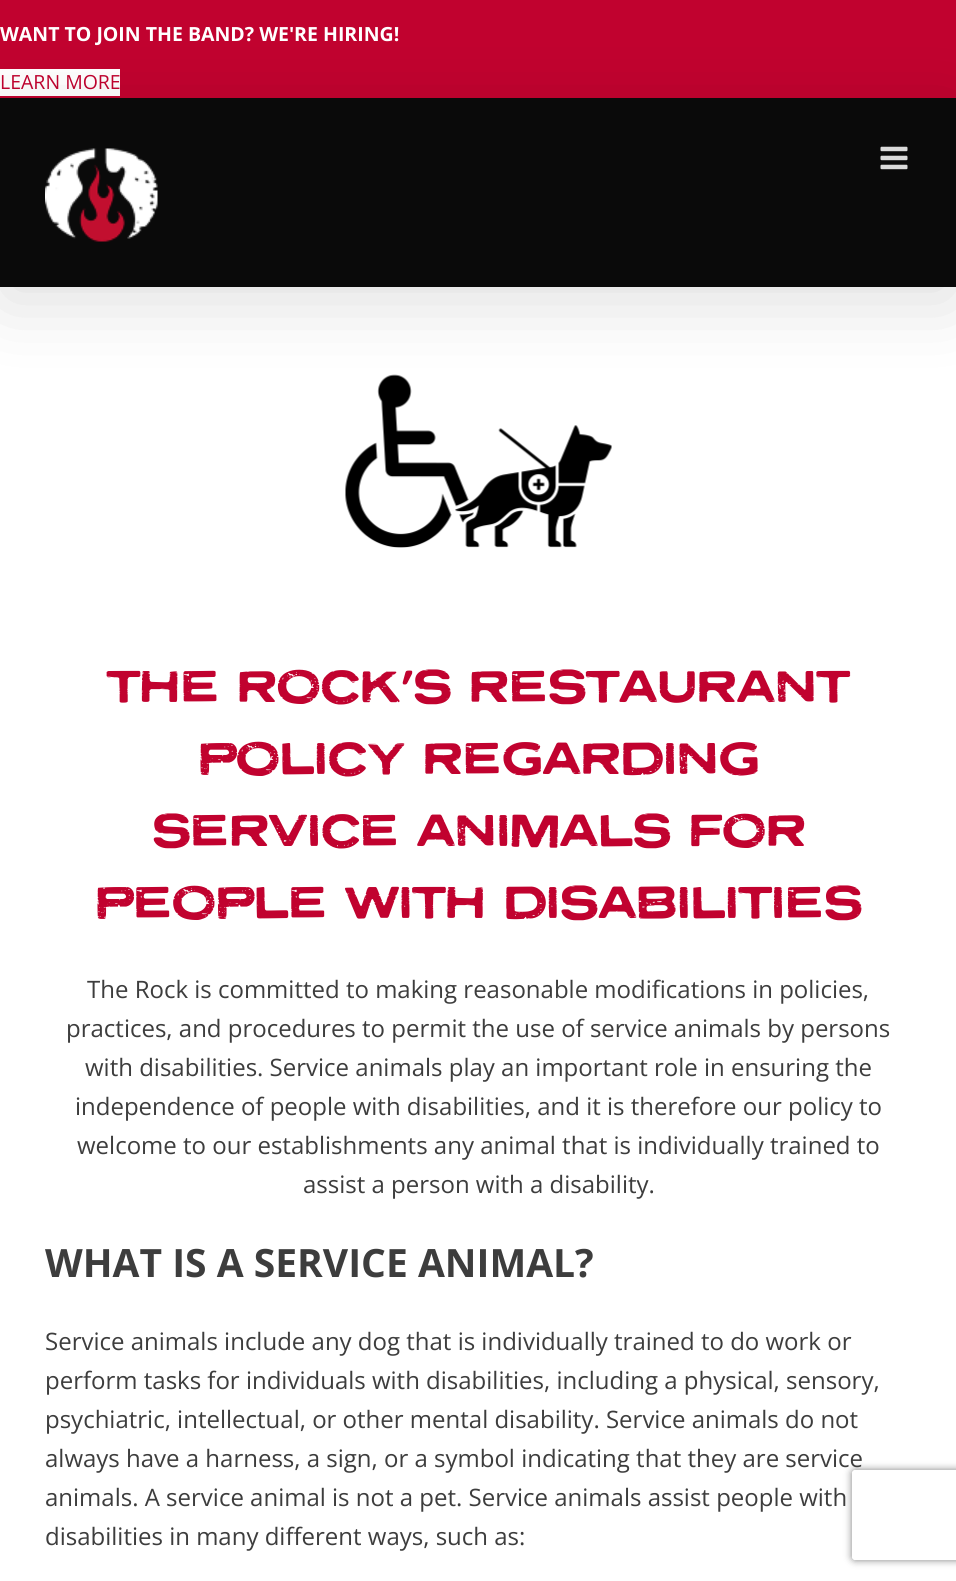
#include <cairo.h>
#include <math.h>
#include <stddef.h>


static void set_color(cairo_t *cr, unsigned color) {
    cairo_set_source_rgb(cr, (color >> 16) / 255.0, (color >> 8 & 255) / 255.0, (color & 255) / 255.0);
}

static void draw_text(cairo_t *cr, double x, double y, const char *s, const char *family, double size, int italic, int bold, unsigned color) {
    cairo_select_font_face(cr, family, italic ? CAIRO_FONT_SLANT_ITALIC : CAIRO_FONT_SLANT_NORMAL,
        bold ? CAIRO_FONT_WEIGHT_BOLD : CAIRO_FONT_WEIGHT_NORMAL);
    cairo_set_font_size(cr, size);
    set_color(cr, color);
    cairo_move_to(cr, x, y);
    cairo_show_text(cr, s);
}

static void fill_rect(cairo_t *cr, double x, double y, double w, double h, unsigned color) {
    set_color(cr, color);
    cairo_rectangle(cr, x, y, w, h);
    cairo_fill(cr);
}

static void rounded_rect(cairo_t *cr, double x, double y, double w, double h, double r) {
    cairo_new_sub_path(cr);
    cairo_arc(cr, x + w - r, y + h - r, r, 0, M_PI / 2);
    cairo_arc(cr, x + r, y + h - r, r, M_PI / 2, M_PI);
    cairo_arc(cr, x + r, y + r, r, M_PI, 1.5 * M_PI);
    cairo_arc(cr, x + w - r, y + r, r, 1.5 * M_PI, 2 * M_PI);
    cairo_close_path(cr);
}

static void draw_shadow(cairo_t *cr, double x, double y, double w, double h, double r, double blur, double alpha) {
    cairo_push_group_with_content(cr, CAIRO_CONTENT_ALPHA);
    cairo_set_operator(cr, CAIRO_OPERATOR_SOURCE);
    for (int i = 15; i >= -15 && fmin(w, h) + blur * i / 3 > 0; i -= 2) {
        double e = blur * i / 6;
        cairo_set_source_rgba(cr, 0, 0, 0, alpha * erfc((i - 1) / 8.5) / 2);
        rounded_rect(cr, x - e, y - e, w + 2 * e, h + 2 * e, fmax(0, fmin(r + e + blur * .6, fmin(w, h) / 2 + e)));
        cairo_fill(cr);
    }
    cairo_pattern_t *soft = cairo_pop_group(cr);
    cairo_mask(cr, soft);
    cairo_pattern_destroy(soft);
}

static void draw_image(cairo_t *cr, const char *path, double x, double y, double w, double h) {
    cairo_surface_t *image = cairo_image_surface_create_from_png(path);
    cairo_save(cr);
    cairo_set_source_surface(cr, image, x, y);
    cairo_rectangle(cr, x, y, w, h);
    cairo_fill(cr);
    cairo_restore(cr);
    cairo_surface_destroy(image);
}

int main(void) {
    cairo_surface_t *surface = cairo_image_surface_create(CAIRO_FORMAT_RGB24, 956, 1581);
    cairo_t *cr = cairo_create(surface);
    cairo_font_options_t *options = cairo_font_options_create();
    cairo_font_options_set_hint_metrics(options, CAIRO_HINT_METRICS_OFF);
    cairo_font_options_set_hint_style(options, CAIRO_HINT_STYLE_NONE);
    cairo_set_font_options(cr, options);
    cairo_set_miter_limit(cr, 4);
    set_color(cr, 0xFFFFFF);
    cairo_paint(cr);
    fill_rect(cr, 0, 0, 956, 98, 0xC1022F);
    draw_text(cr, 0, 41, "WANT TO JOIN THE BAND? WE'RE HIRING!", "Open Sans", 19.5, 0, 1, 0xFFFFFF);
    fill_rect(cr, 0, 69, 120, 27, 0xFFFFFF);
    draw_text(cr, 0, 89, "LEARN MORE", "Open Sans", 19.5, 0, 0, 0xC1022F);
    draw_image(cr, "assets/img3.png", 345, 374, 267, 174);
    set_color(cr, 0x000000);
    draw_shadow(cr, 3, 116, 951, 183, 0, 37.5, 0.14);
    fill_rect(cr, 0, 98, 956, 189, 0x0A0A0A);
    draw_image(cr, "assets/img1.png", 45, 148, 113, 94);
    draw_image(cr, "assets/img2.png", 880, 146, 28, 24);
    draw_text(cr, 107, 702, "THE ROCK’S RESTAURANT", "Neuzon", 48, 0, 0, 0xC1022F);
    draw_text(cr, 198, 774, "POLICY REGARDING", "Neuzon", 48, 0, 0, 0xC1022F);
    draw_text(cr, 152, 846, "SERVICE ANIMALS FOR", "Neuzon", 48, 0, 0, 0xC1022F);
    draw_text(cr, 95, 918, "PEOPLE WITH DISABILITIES", "Neuzon", 48, 0, 0, 0xC1022F);
    draw_text(cr, 87, 998, "The Rock is committed to making reasonable modifications in policies,", "Open Sans", 24, 0, 0, 0x3D3D3D);
    draw_text(cr, 66, 1037, "practices, and procedures to permit the use of service animals by persons", "Open Sans", 24, 0, 0, 0x3D3D3D);
    draw_text(cr, 85, 1076, "with disabilities. Service animals play an important role in ensuring the", "Open Sans", 24, 0, 0, 0x3D3D3D);
    draw_text(cr, 75, 1115, "independence of people with disabilities, and it is therefore our policy to", "Open Sans", 24, 0, 0, 0x3D3D3D);
    draw_text(cr, 77, 1154, "welcome to our establishments any animal that is individually trained to", "Open Sans", 24, 0, 0, 0x3D3D3D);
    draw_text(cr, 303, 1193, "assist a person with a disability.", "Open Sans", 24, 0, 0, 0x3D3D3D);
    draw_text(cr, 45, 1277, "WHAT IS A SERVICE ANIMAL?", "Open Sans", 39, 0, 1, 0x3D3D3D);
    draw_text(cr, 45, 1350, "Service animals include any dog that is individually trained to do work or", "Open Sans", 24, 0, 0, 0x3D3D3D);
    draw_text(cr, 45, 1389, "perform tasks for individuals with disabilities, including a physical, sensory,", "Open Sans", 24, 0, 0, 0x3D3D3D);
    draw_text(cr, 45, 1428, "psychiatric, intellectual, or other mental disability. Service animals do not", "Open Sans", 24, 0, 0, 0x3D3D3D);
    cairo_save(cr);
    cairo_set_fill_rule(cr, CAIRO_FILL_RULE_EVEN_ODD);
    cairo_new_path(cr);
    cairo_move_to(cr, 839, 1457);
    cairo_line_to(cr, 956, 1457);
    cairo_line_to(cr, 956, 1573);
    cairo_line_to(cr, 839, 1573);
    cairo_close_path(cr);
    cairo_move_to(cr, 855, 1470);
    cairo_line_to(cr, 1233, 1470);
    cairo_curve_to(cr, 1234.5, 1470, 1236, 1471.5, 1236, 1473);
    cairo_line_to(cr, 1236, 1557);
    cairo_curve_to(cr, 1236, 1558.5, 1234.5, 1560, 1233, 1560);
    cairo_line_to(cr, 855, 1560);
    cairo_curve_to(cr, 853.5, 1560, 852, 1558.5, 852, 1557);
    cairo_line_to(cr, 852, 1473);
    cairo_curve_to(cr, 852, 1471.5, 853.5, 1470, 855, 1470);
    cairo_close_path(cr);
    cairo_clip(cr);
    set_color(cr, 0x808080);
    draw_shadow(cr, 852, 1470, 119, 90, 3, 4, 1);
    cairo_restore(cr);
    draw_text(cr, 45, 1467, "always have a harness, a sign, or a symbol indicating that they are service", "Open Sans", 24, 0, 0, 0x3D3D3D);
    draw_text(cr, 45, 1506, "animals. A service animal is not a pet. Service animals assist people with", "Open Sans", 24, 0, 0, 0x3D3D3D);
    draw_text(cr, 45, 1545, "disabilities in many different ways, such as:", "Open Sans", 24, 0, 0, 0x3D3D3D);
    cairo_surface_write_to_png(surface, "output.png");
    cairo_font_options_destroy(options);
    cairo_destroy(cr);
    cairo_surface_destroy(surface);
    return 0;
}
